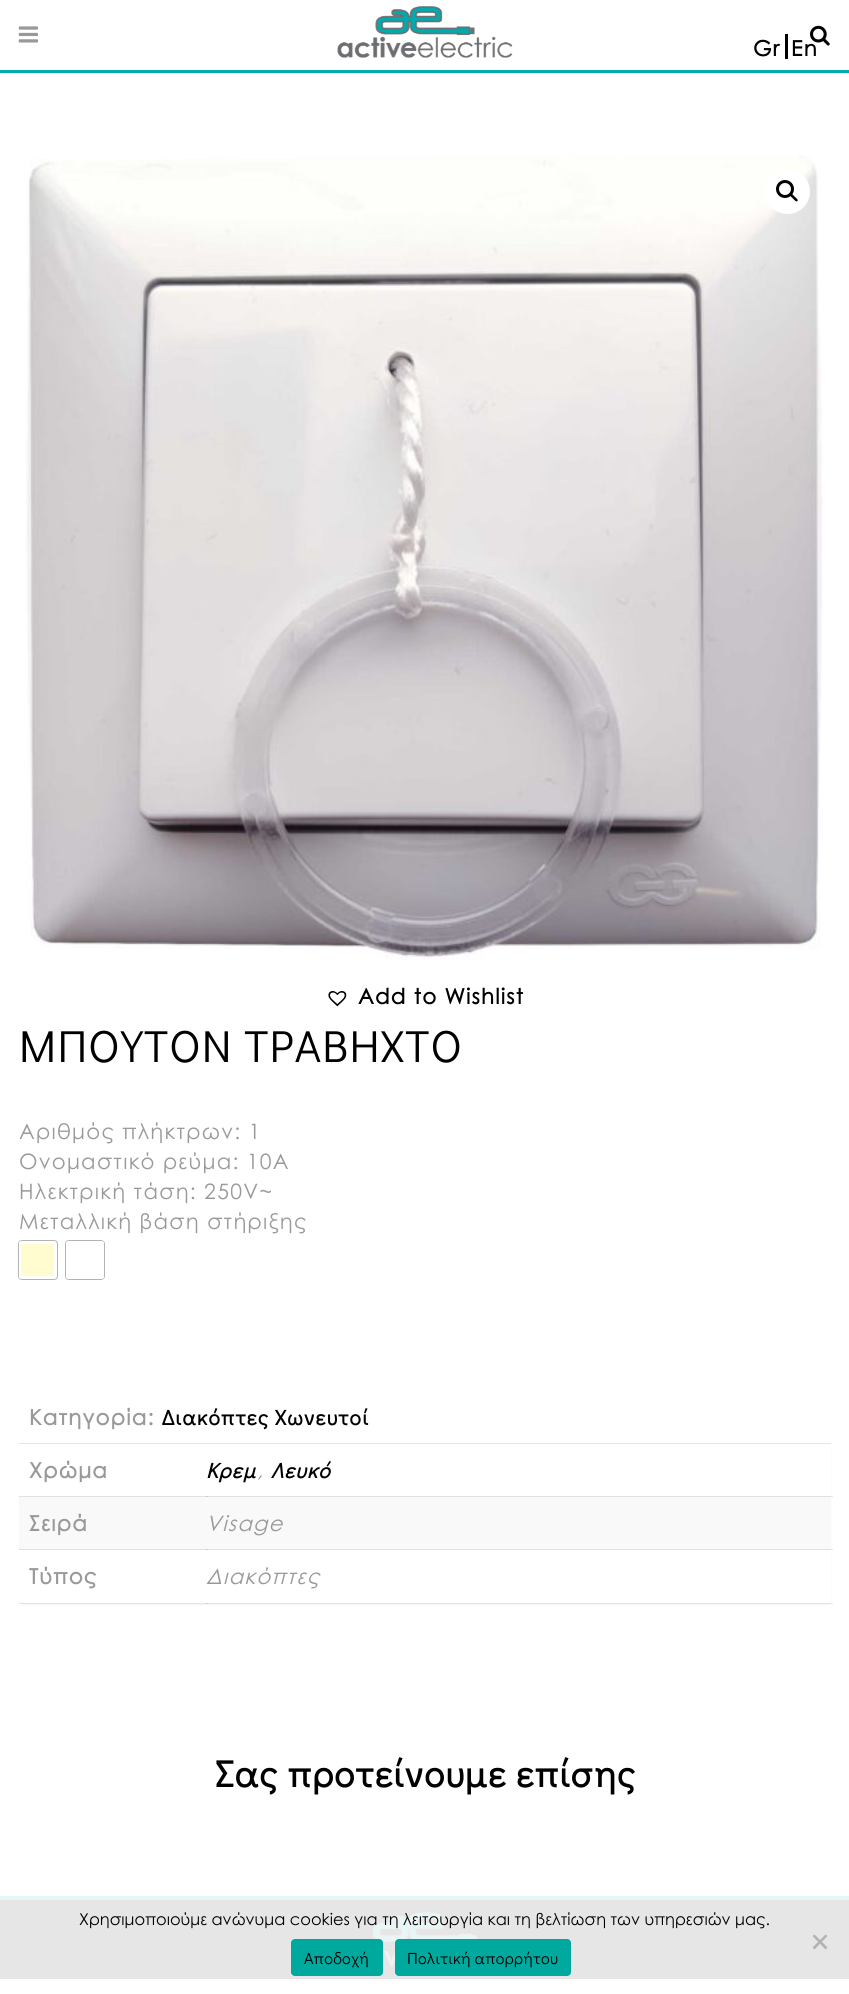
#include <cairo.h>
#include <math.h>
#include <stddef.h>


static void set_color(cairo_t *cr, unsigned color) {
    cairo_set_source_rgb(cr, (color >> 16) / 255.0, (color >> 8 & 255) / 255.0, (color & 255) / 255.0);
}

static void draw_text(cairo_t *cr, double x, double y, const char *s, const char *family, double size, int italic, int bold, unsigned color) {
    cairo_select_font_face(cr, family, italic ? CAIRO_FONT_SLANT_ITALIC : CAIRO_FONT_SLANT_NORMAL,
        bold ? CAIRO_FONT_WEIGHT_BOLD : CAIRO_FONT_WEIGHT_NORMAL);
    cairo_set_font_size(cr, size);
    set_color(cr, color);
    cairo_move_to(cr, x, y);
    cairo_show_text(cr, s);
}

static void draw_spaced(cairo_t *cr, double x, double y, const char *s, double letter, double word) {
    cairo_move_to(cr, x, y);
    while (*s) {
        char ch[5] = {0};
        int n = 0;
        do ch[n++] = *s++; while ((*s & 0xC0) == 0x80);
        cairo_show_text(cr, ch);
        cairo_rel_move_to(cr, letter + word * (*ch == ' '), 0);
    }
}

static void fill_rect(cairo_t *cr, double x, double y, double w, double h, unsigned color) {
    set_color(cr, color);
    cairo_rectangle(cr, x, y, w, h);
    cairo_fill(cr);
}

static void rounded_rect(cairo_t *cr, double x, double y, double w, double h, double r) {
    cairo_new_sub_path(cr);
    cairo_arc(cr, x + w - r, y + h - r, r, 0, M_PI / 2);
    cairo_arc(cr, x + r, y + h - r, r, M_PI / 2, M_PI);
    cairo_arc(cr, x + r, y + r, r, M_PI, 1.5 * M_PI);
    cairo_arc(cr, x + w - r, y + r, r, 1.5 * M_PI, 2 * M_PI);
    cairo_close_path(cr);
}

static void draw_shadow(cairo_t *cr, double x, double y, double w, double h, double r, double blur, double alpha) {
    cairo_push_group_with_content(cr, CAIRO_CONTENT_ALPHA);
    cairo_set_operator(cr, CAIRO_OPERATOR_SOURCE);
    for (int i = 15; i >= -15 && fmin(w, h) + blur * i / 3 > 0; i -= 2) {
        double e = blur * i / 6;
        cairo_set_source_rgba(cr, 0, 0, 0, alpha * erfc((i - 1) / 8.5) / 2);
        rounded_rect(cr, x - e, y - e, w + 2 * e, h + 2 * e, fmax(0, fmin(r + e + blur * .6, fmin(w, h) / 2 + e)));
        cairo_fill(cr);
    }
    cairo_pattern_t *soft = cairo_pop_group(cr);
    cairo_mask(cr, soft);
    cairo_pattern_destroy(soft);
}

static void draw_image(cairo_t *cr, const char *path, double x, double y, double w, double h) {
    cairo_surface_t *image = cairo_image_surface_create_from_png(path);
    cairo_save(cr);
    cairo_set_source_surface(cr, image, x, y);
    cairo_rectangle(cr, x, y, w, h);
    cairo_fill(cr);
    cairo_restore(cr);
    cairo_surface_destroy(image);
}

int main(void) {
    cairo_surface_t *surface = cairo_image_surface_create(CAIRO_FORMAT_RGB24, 849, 1994);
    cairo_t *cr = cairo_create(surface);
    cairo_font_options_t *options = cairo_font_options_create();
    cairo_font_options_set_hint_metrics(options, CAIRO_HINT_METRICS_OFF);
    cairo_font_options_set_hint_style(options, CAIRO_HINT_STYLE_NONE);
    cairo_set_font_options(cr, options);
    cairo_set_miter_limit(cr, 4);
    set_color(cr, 0xFFFFFF);
    cairo_paint(cr);
    fill_rect(cr, 0, 70, 849, 3, 0x00AAAD);
    draw_image(cr, "assets/img1.png", 18, 26, 20, 17);
    draw_image(cr, "assets/img2.png", 337, 6, 176, 52);
    draw_image(cr, "assets/img3.png", 810, 25, 20, 21);
    cairo_select_font_face(cr, "Century Gothic", CAIRO_FONT_SLANT_NORMAL, CAIRO_FONT_WEIGHT_BOLD);
    cairo_set_font_size(cr, 21.25);
    set_color(cr, 0x000000);
    draw_spaced(cr, 753, 56, "Gr", 1.25, 0);
    fill_rect(cr, 785, 34, 3, 25, 0x000000);
    draw_spaced(cr, 791, 56, "En", 1.25, 0);
    draw_image(cr, "assets/img4.png", 26, 155, 797, 805);
    set_color(cr, 0xFFFFFF);
    cairo_arc(cr, 787.5, 191.5, 22.5, 0, 2 * M_PI);
    cairo_fill(cr);
    cairo_arc(cr, 785, 189, 7.5, 0, 2 * M_PI);
    set_color(cr, 0x000000);
    cairo_set_line_width(cr, 3);
    cairo_stroke(cr);
    cairo_new_path(cr);
    cairo_move_to(cr, 790, 194);
    cairo_curve_to(cr, 791.5, 192.5, 794, 196, 794.5, 196.5);
    cairo_curve_to(cr, 795.5, 197.5, 798.5, 199.5, 797.5, 201);
    cairo_curve_to(cr, 796, 202.5, 793.5, 199, 793, 198.5);
    cairo_curve_to(cr, 792, 197.5, 789, 195.5, 790, 194);
    cairo_close_path(cr);
    cairo_fill(cr);
    draw_image(cr, "assets/img5.png", 328, 991, 19, 16);
    draw_spaced(cr, 358, 1004, "Add to Wishlist", 1.25, 0);
    cairo_select_font_face(cr, "Didact Gothic", CAIRO_FONT_SLANT_NORMAL, CAIRO_FONT_WEIGHT_NORMAL);
    cairo_set_font_size(cr, 45);
    draw_spaced(cr, 19, 1062, "ΜΠΟΥΤΟΝ ΤΡΑΒΗΧΤΟ", 1.25, 0);
    cairo_select_font_face(cr, "Century Gothic", CAIRO_FONT_SLANT_NORMAL, CAIRO_FONT_WEIGHT_NORMAL);
    cairo_set_font_size(cr, 21.25);
    set_color(cr, 0x999999);
    draw_spaced(cr, 19, 1139, "Αριθμός πλήκτρων: 1", 1.25, 0);
    draw_spaced(cr, 19, 1169, "Ονομαστικό ρεύμα: 10A", 1.25, 0);
    draw_spaced(cr, 19, 1199, "Ηλεκτρική τάση: 250V~", 1.25, 0);
    draw_spaced(cr, 19, 1229, "Μεταλλική βάση στήριξης", 1.25, 0);
    rounded_rect(cr, 18.5, 1240.5, 39, 39, 3.5);
    set_color(cr, 0xB3B3B3);
    cairo_set_line_width(cr, 1);
    cairo_stroke(cr);
    set_color(cr, 0xFFFFFF);
    rounded_rect(cr, 19, 1241, 37, 38, 2.5);
    cairo_fill(cr);
    fill_rect(cr, 21, 1244, 33, 32, 0xFFFDD0);
    rounded_rect(cr, 65.5, 1240.5, 39, 39, 3.5);
    set_color(cr, 0xB3B3B3);
    cairo_stroke(cr);
    set_color(cr, 0xFFFFFF);
    rounded_rect(cr, 66, 1241, 38, 38, 2.5);
    cairo_fill(cr);
    cairo_select_font_face(cr, "Century Gothic", CAIRO_FONT_SLANT_NORMAL, CAIRO_FONT_WEIGHT_BOLD);
    set_color(cr, 0x999999);
    draw_spaced(cr, 29, 1425, "Κατηγορία:", 1.25, 0);
    cairo_select_font_face(cr, "Didact Gothic", CAIRO_FONT_SLANT_NORMAL, CAIRO_FONT_WEIGHT_BOLD);
    set_color(cr, 0x000000);
    draw_spaced(cr, 162, 1425, "Διακόπτες Χωνευτοί", 1.25, 0);
    set_color(cr, 0x000000);
    draw_shadow(cr, 19, 1444, 812, 161, 5, 0.5, 0.05);
    set_color(cr, 0xFFFFFF);
    rounded_rect(cr, 19, 1443, 812, 161, 5);
    cairo_fill(cr);
    fill_rect(cr, 19, 1443, 812, 1, 0xE5E5E5);
    fill_rect(cr, 19, 1496, 812, 54, 0xF9F9F9);
    cairo_set_source_rgba(cr, 0, 0, 0, 0.1);
    cairo_rectangle(cr, 206, 1496, 627, 1);
    cairo_fill(cr);
    cairo_rectangle(cr, 19, 1496, 189, 1);
    cairo_fill(cr);
    cairo_select_font_face(cr, "Century Gothic", CAIRO_FONT_SLANT_NORMAL, CAIRO_FONT_WEIGHT_BOLD);
    set_color(cr, 0x999999);
    draw_spaced(cr, 29, 1478, "Χρώμα", 1.25, 0);
    cairo_select_font_face(cr, "Didact Gothic", CAIRO_FONT_SLANT_ITALIC, CAIRO_FONT_WEIGHT_BOLD);
    set_color(cr, 0x000000);
    draw_spaced(cr, 206, 1478, "Κρεμ", 1.25, 0);
    cairo_select_font_face(cr, "Century Gothic", CAIRO_FONT_SLANT_ITALIC, CAIRO_FONT_WEIGHT_NORMAL);
    set_color(cr, 0x999999);
    draw_spaced(cr, 257, 1478, ",", 1.25, 0);
    cairo_select_font_face(cr, "Didact Gothic", CAIRO_FONT_SLANT_ITALIC, CAIRO_FONT_WEIGHT_BOLD);
    set_color(cr, 0x000000);
    draw_spaced(cr, 271, 1478, "Λευκό", 1.25, 0);
    cairo_set_source_rgba(cr, 0, 0, 0, 0.1);
    cairo_rectangle(cr, 206, 1549, 627, 1);
    cairo_fill(cr);
    cairo_rectangle(cr, 19, 1549, 189, 1);
    cairo_fill(cr);
    cairo_select_font_face(cr, "Century Gothic", CAIRO_FONT_SLANT_NORMAL, CAIRO_FONT_WEIGHT_BOLD);
    set_color(cr, 0x999999);
    draw_spaced(cr, 29, 1531, "Σειρά", 1.25, 0);
    cairo_select_font_face(cr, "Century Gothic", CAIRO_FONT_SLANT_ITALIC, CAIRO_FONT_WEIGHT_NORMAL);
    draw_spaced(cr, 206, 1531, "Visage", 1.25, 0);
    cairo_set_source_rgba(cr, 0, 0, 0, 0.1);
    cairo_rectangle(cr, 206, 1603, 627, 1);
    cairo_fill(cr);
    cairo_rectangle(cr, 19, 1603, 189, 1);
    cairo_fill(cr);
    cairo_select_font_face(cr, "Century Gothic", CAIRO_FONT_SLANT_NORMAL, CAIRO_FONT_WEIGHT_BOLD);
    set_color(cr, 0x999999);
    draw_spaced(cr, 29, 1584, "Τύπος", 1.25, 0);
    cairo_select_font_face(cr, "Century Gothic", CAIRO_FONT_SLANT_ITALIC, CAIRO_FONT_WEIGHT_NORMAL);
    draw_spaced(cr, 206, 1584, "Διακόπτες", 1.25, 0);
    cairo_select_font_face(cr, "Didact Gothic", CAIRO_FONT_SLANT_NORMAL, CAIRO_FONT_WEIGHT_BOLD);
    cairo_set_font_size(cr, 37.5);
    set_color(cr, 0x000000);
    draw_spaced(cr, 215, 1787, "Σας προτείνουμε επίσης", 1.25, 0);
    fill_rect(cr, 0, 1900, 849, 79, 0xE6E6E6);
    fill_rect(cr, 0, 1896, 849, 4, 0xE6F7F7);
    draw_image(cr, "assets/img6.png", 372, 1912, 106, 55);
    draw_text(cr, 79, 1925, "Χρησιμοποιούμε ανώνυμα cookies για τη λειτουργία και τη βελτίωση των υπηρεσιών μας.", "Century Gothic", 16.25, 0, 0, 0x000000);
    set_color(cr, 0xB3B3B3);
    cairo_new_path(cr);
    cairo_move_to(cr, 825.5, 1934.5);
    cairo_line_to(cr, 827.5, 1936);
    cairo_line_to(cr, 814.5, 1949.5);
    cairo_line_to(cr, 812.5, 1947.5);
    cairo_close_path(cr);
    cairo_fill(cr);
    cairo_new_path(cr);
    cairo_move_to(cr, 812.5, 1936);
    cairo_line_to(cr, 814.5, 1934.5);
    cairo_line_to(cr, 827.5, 1947.5);
    cairo_line_to(cr, 825.5, 1949.5);
    cairo_close_path(cr);
    cairo_fill(cr);
    set_color(cr, 0x00A99D);
    rounded_rect(cr, 291, 1939, 92, 37, 4);
    cairo_fill(cr);
    cairo_select_font_face(cr, "Didact Gothic", CAIRO_FONT_SLANT_NORMAL, CAIRO_FONT_WEIGHT_NORMAL);
    set_color(cr, 0x000000);
    draw_spaced(cr, 304, 1964, "Αποδοχή", 0.3, 0);
    set_color(cr, 0x00A99D);
    rounded_rect(cr, 395, 1939, 176, 37, 4);
    cairo_fill(cr);
    set_color(cr, 0x000000);
    draw_spaced(cr, 407, 1964, "Πολιτική απορρήτου", 0.3, 0);
    cairo_surface_write_to_png(surface, "output.png");
    cairo_font_options_destroy(options);
    cairo_destroy(cr);
    cairo_surface_destroy(surface);
    return 0;
}
